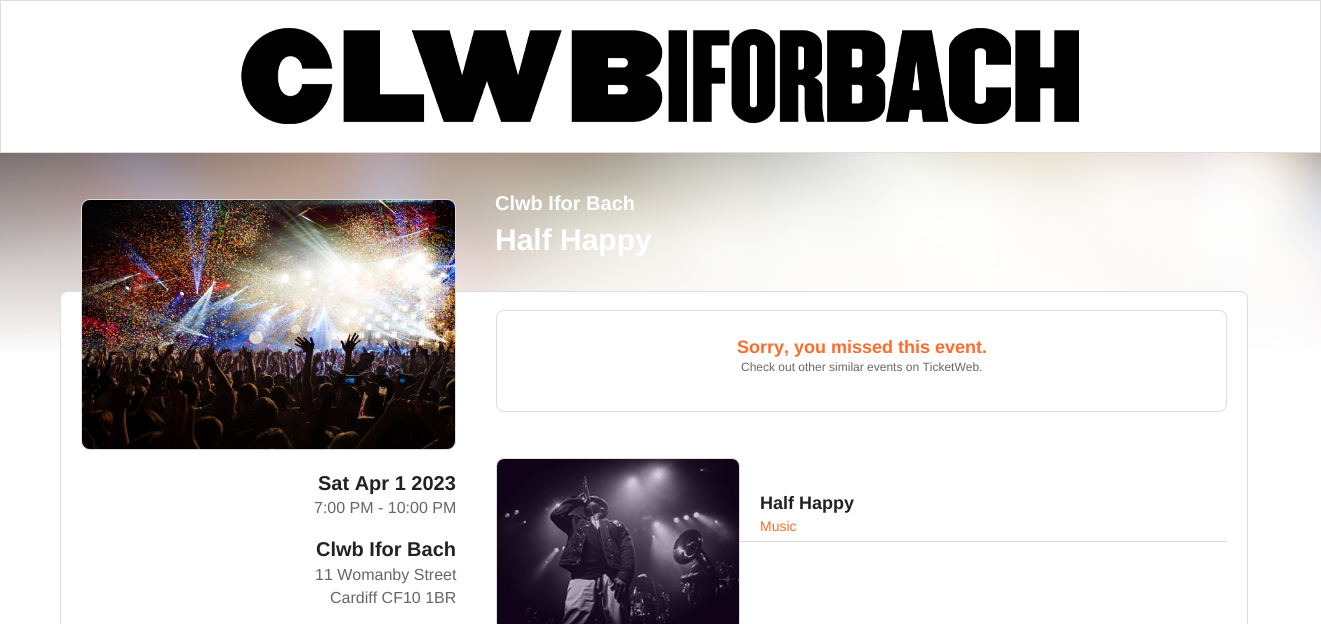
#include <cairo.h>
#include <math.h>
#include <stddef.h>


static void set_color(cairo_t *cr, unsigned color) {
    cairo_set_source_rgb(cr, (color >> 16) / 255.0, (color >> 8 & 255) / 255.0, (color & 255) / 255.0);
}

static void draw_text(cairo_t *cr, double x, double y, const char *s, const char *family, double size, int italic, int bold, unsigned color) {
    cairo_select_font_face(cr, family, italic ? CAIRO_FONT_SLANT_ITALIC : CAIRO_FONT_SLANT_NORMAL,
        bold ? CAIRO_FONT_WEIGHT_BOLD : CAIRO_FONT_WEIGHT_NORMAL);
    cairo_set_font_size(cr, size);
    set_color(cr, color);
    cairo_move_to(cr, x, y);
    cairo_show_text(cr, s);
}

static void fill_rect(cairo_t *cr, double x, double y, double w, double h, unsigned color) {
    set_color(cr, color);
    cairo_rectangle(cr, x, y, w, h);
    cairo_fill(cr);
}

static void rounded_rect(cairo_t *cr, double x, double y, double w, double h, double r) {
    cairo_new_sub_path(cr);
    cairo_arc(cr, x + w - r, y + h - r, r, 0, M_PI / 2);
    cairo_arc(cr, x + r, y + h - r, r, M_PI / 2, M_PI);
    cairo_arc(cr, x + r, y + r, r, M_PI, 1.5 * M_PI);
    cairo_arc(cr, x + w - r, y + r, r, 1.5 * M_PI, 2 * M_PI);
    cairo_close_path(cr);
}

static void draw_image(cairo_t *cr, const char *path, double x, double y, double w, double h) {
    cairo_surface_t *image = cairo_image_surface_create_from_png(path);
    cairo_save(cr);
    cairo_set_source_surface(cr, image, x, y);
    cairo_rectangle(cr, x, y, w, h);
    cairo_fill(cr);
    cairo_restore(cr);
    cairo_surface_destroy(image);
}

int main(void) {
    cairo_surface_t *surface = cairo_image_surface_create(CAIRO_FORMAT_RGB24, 1321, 624);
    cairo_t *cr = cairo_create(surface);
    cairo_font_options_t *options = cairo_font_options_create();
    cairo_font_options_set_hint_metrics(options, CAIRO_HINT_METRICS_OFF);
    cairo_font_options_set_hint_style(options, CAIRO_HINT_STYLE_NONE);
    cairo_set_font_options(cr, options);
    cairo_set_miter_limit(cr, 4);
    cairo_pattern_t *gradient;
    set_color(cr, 0xFFFFFF);
    cairo_paint(cr);
    cairo_rectangle(cr, 0.5, 0.5, 1320, 152);
    set_color(cr, 0xDDDDDD);
    cairo_set_line_width(cr, 1);
    cairo_stroke(cr);
    draw_image(cr, "assets/img1.png", 241, 28, 838, 96);
    draw_image(cr, "assets/img2.png", 0, 153, 1321, 201);
    gradient = cairo_pattern_create_linear(661, 0, 661, 624);
    cairo_pattern_add_color_stop_rgba(gradient, 0, 1, 1, 1, 0);
    cairo_pattern_add_color_stop_rgba(gradient, 0.57, 1, 1, 1, 1);
    cairo_set_source(cr, gradient);
    cairo_pattern_destroy(gradient);
    cairo_rectangle(cr, 0, 153, 1321, 201);
    cairo_fill(cr);
    set_color(cr, 0xFFFFFF);
    rounded_rect(cr, 60.5, 291.5, 1187, 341, 7.5);
    cairo_fill_preserve(cr);
    set_color(cr, 0xDDDDDD);
    cairo_stroke(cr);
    rounded_rect(cr, 81.5, 292.5, 374, 157, 8.5);
    cairo_stroke(cr);
    rounded_rect(cr, 81.5, 199.5, 374, 250, 8.5);
    cairo_stroke(cr);
    draw_image(cr, "assets/img3.png", 82, 200, 373, 249);
    gradient = cairo_pattern_create_linear(269, 200, 269, 449);
    cairo_pattern_add_color_stop_rgba(gradient, 0.5, 0, 0, 0, 0);
    cairo_pattern_add_color_stop_rgba(gradient, 1, 0, 0, 0, 0.2);
    cairo_set_source(cr, gradient);
    cairo_pattern_destroy(gradient);
    rounded_rect(cr, 82, 200, 373, 249, 8);
    cairo_fill(cr);
    draw_text(cr, 318, 490, "Sat Apr 1 2023", "Liberation Sans", 20, 0, 1, 0x222222);
    draw_text(cr, 314, 513, "7:00 PM - 10:00 PM", "Liberation Sans", 16, 0, 0, 0x666666);
    draw_text(cr, 316, 556, "Clwb Ifor Bach", "Liberation Sans", 20, 0, 1, 0x222222);
    draw_text(cr, 315, 580, "11 Womanby Street", "Liberation Sans", 16, 0, 0, 0x666666);
    draw_text(cr, 330, 603, "Cardiff CF10 1BR", "Liberation Sans", 16, 0, 0, 0x666666);
    draw_text(cr, 495, 210, "Clwb Ifor Bach", "Liberation Sans", 20, 0, 1, 0xFFFFFF);
    draw_text(cr, 495, 250, "Half Happy", "Liberation Sans", 30, 0, 1, 0xFFFFFF);
    rounded_rect(cr, 496.5, 310.5, 730, 101, 7.5);
    set_color(cr, 0xDDDDDD);
    cairo_stroke(cr);
    draw_text(cr, 737, 353, "Sorry, you missed this event.", "Liberation Sans", 18, 0, 1, 0xFE6C2D);
    draw_text(cr, 741, 371, "Check out other similar events on TicketWeb.", "Liberation Sans", 12, 0, 0, 0x666666);
    rounded_rect(cr, 496.5, 458.5, 243, 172, 7.5);
    set_color(cr, 0xDDDDDD);
    cairo_stroke(cr);
    draw_image(cr, "assets/img4.png", 497, 459, 242, 165);
    fill_rect(cr, 740, 541, 487, 1, 0xDDDDDD);
    draw_text(cr, 760, 509, "Half Happy", "Liberation Sans", 18, 0, 1, 0x222222);
    draw_text(cr, 760, 531, "Music", "Liberation Sans", 14, 0, 0, 0xFE6C2D);
    cairo_surface_write_to_png(surface, "output.png");
    cairo_font_options_destroy(options);
    cairo_destroy(cr);
    cairo_surface_destroy(surface);
    return 0;
}
